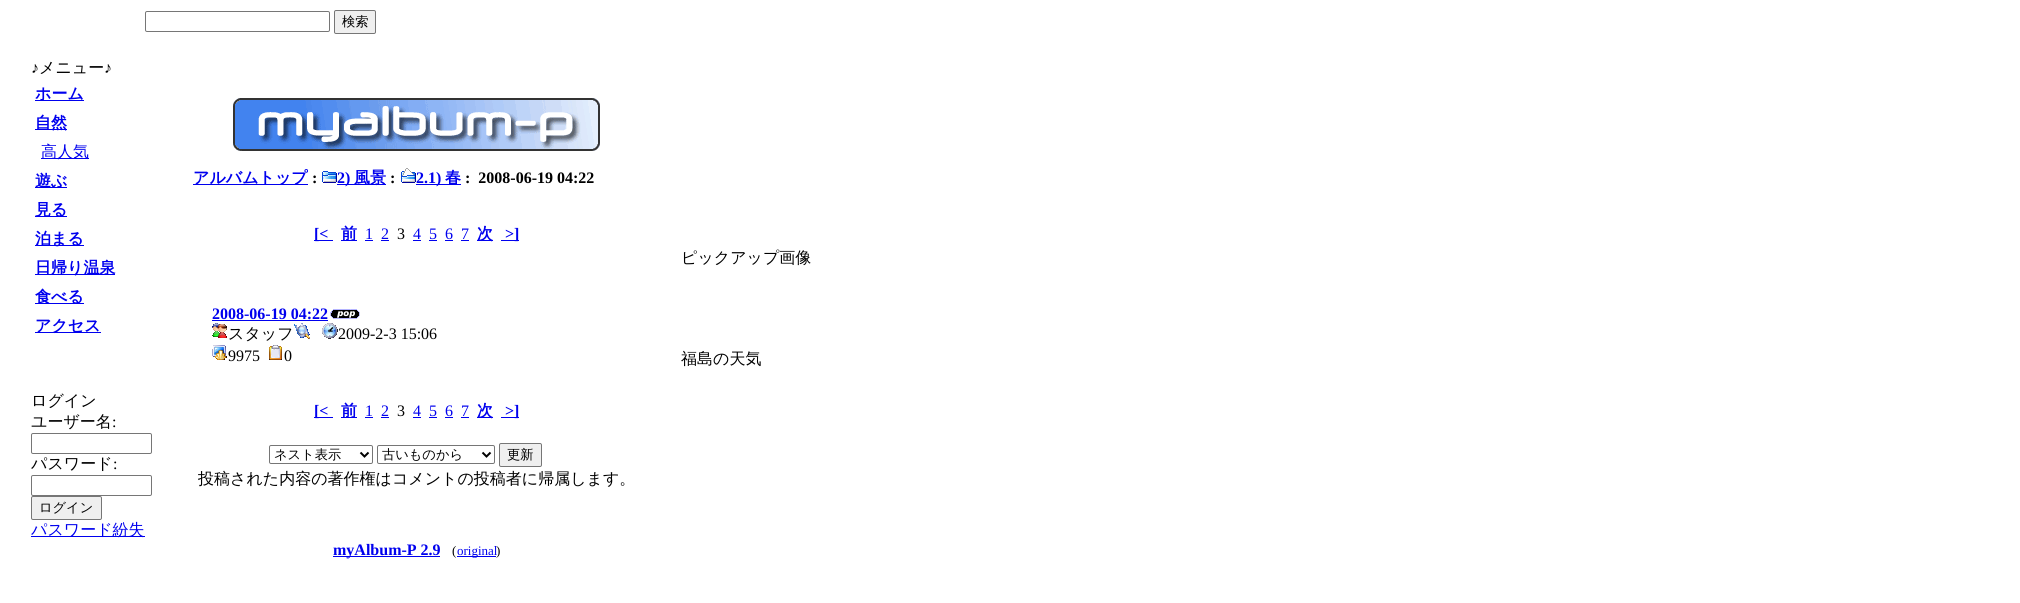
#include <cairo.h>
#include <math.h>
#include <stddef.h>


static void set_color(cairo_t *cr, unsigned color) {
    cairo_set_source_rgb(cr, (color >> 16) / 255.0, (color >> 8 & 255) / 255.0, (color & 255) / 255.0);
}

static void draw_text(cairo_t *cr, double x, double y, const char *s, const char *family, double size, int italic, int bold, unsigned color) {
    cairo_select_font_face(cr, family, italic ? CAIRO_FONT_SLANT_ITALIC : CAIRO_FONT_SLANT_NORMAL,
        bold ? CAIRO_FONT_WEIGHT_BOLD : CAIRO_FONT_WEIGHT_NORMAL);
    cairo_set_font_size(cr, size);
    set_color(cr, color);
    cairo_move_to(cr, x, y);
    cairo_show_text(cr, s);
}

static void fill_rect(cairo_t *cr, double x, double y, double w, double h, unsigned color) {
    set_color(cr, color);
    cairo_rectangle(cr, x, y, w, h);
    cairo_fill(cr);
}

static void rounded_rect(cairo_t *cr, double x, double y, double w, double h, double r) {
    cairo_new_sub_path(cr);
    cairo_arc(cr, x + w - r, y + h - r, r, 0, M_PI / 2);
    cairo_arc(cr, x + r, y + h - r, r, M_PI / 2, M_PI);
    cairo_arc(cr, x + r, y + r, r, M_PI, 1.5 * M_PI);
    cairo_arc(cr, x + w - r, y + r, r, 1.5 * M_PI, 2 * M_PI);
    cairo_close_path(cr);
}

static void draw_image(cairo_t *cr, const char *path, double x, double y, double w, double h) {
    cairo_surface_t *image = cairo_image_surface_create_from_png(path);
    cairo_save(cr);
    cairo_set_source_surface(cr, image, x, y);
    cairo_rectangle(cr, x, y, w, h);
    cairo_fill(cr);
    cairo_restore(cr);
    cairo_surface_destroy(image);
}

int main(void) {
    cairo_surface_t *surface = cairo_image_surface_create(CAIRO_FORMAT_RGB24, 2020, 603);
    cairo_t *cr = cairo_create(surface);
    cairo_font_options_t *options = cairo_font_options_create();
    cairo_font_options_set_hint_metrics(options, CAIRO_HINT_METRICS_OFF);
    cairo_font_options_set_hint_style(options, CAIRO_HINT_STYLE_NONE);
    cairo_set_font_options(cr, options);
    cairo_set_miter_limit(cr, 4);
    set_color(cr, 0xFFFFFF);
    cairo_paint(cr);
    rounded_rect(cr, 145.5, 11.5, 184, 20, 1.5);
    set_color(cr, 0x767676);
    cairo_set_line_width(cr, 1);
    cairo_stroke(cr);
    set_color(cr, 0xEFEFEF);
    rounded_rect(cr, 334.5, 10.5, 41, 23, 1.5);
    cairo_fill_preserve(cr);
    set_color(cr, 0x767676);
    cairo_stroke(cr);
    draw_text(cr, 342, 26, "検索", "WenQuanYi Zen Hei Medium", 13.25, 0, 0, 0x000000);
    draw_text(cr, 31, 73, "♪", "Liberation Serif", 16, 0, 0, 0x000000);
    draw_text(cr, 39, 73, "メニュー", "WenQuanYi Zen Hei Medium", 16, 0, 0, 0x000000);
    draw_text(cr, 104, 73, "♪", "Liberation Serif", 16, 0, 0, 0x000000);
    fill_rect(cr, 35, 100, 49, 1, 0x0000EE);
    draw_text(cr, 35, 99, "ホーム", "WenQuanYi Zen Hei", 16, 0, 1, 0x0000EE);
    fill_rect(cr, 35, 129, 32, 1, 0x0000EE);
    draw_text(cr, 35, 128, "自然", "WenQuanYi Zen Hei", 16, 0, 1, 0x0000EE);
    fill_rect(cr, 41, 158, 48, 1, 0x0000EE);
    draw_text(cr, 41, 157, "高人気", "WenQuanYi Zen Hei Medium", 16, 0, 0, 0x0000EE);
    fill_rect(cr, 35, 187, 32, 1, 0x0000EE);
    draw_text(cr, 35, 186, "遊ぶ", "WenQuanYi Zen Hei", 16, 0, 1, 0x0000EE);
    fill_rect(cr, 35, 216, 32, 1, 0x0000EE);
    draw_text(cr, 35, 215, "見る", "WenQuanYi Zen Hei", 16, 0, 1, 0x0000EE);
    fill_rect(cr, 35, 245, 49, 1, 0x0000EE);
    draw_text(cr, 35, 244, "泊まる", "WenQuanYi Zen Hei", 16, 0, 1, 0x0000EE);
    fill_rect(cr, 35, 274, 80, 1, 0x0000EE);
    draw_text(cr, 35, 273, "日帰り温泉", "WenQuanYi Zen Hei", 16, 0, 1, 0x0000EE);
    fill_rect(cr, 35, 303, 49, 1, 0x0000EE);
    draw_text(cr, 35, 302, "食べる", "WenQuanYi Zen Hei", 16, 0, 1, 0x0000EE);
    fill_rect(cr, 35, 332, 66, 1, 0x0000EE);
    draw_text(cr, 35, 331, "アクセス", "WenQuanYi Zen Hei", 16, 0, 1, 0x0000EE);
    draw_text(cr, 31, 406, "ログイン", "WenQuanYi Zen Hei Medium", 16, 0, 0, 0x000000);
    draw_text(cr, 31, 427, "ユーザー名", "WenQuanYi Zen Hei Medium", 16, 0, 0, 0x000000);
    draw_text(cr, 112, 427, ":", "Liberation Serif", 16, 0, 0, 0x000000);
    rounded_rect(cr, 31.5, 433.5, 120, 20, 1.5);
    set_color(cr, 0x767676);
    cairo_stroke(cr);
    draw_text(cr, 31, 469, "パスワード", "WenQuanYi Zen Hei Medium", 16, 0, 0, 0x000000);
    draw_text(cr, 113, 469, ":", "Liberation Serif", 16, 0, 0, 0x000000);
    rounded_rect(cr, 31.5, 475.5, 120, 20, 1.5);
    set_color(cr, 0x767676);
    cairo_stroke(cr);
    set_color(cr, 0xEFEFEF);
    rounded_rect(cr, 31.5, 496.5, 70, 23, 1.5);
    cairo_fill_preserve(cr);
    set_color(cr, 0x767676);
    cairo_stroke(cr);
    draw_text(cr, 39, 512, "ログイン", "WenQuanYi Zen Hei Medium", 13.25, 0, 0, 0x000000);
    fill_rect(cr, 31, 536, 114, 1, 0x0000EE);
    draw_text(cr, 31, 535, "パスワード紛失", "WenQuanYi Zen Hei Medium", 16, 0, 0, 0x0000EE);
    draw_image(cr, "assets/img1.png", 233, 98, 367, 53);
    fill_rect(cr, 193, 184, 115, 1, 0x0000EE);
    draw_text(cr, 193, 183, "アルバムトップ", "WenQuanYi Zen Hei", 16, 0, 1, 0x0000EE);
    draw_text(cr, 312, 183, ":", "Liberation Serif", 16, 0, 1, 0x000000);
    draw_image(cr, "assets/img2.png", 322, 171, 15, 12);
    fill_rect(cr, 337, 184, 49, 1, 0x0000EE);
    draw_text(cr, 337, 183, "2)", "Liberation Serif", 16, 0, 1, 0x0000EE);
    draw_text(cr, 354, 183, "風景", "WenQuanYi Zen Hei", 16, 0, 1, 0x0000EE);
    draw_text(cr, 390, 183, ":", "Liberation Serif", 16, 0, 1, 0x000000);
    draw_image(cr, "assets/img3.png", 401, 168, 15, 15);
    fill_rect(cr, 416, 184, 45, 1, 0x0000EE);
    draw_text(cr, 416, 183, "2.1)", "Liberation Serif", 16, 0, 1, 0x0000EE);
    draw_text(cr, 445, 183, "春", "WenQuanYi Zen Hei", 16, 0, 1, 0x0000EE);
    draw_text(cr, 465, 183, ":  2008-06-19 04:22", "Liberation Serif", 16, 0, 1, 0x000000);
    fill_rect(cr, 314, 240, 19, 1, 0x0000EE);
    draw_text(cr, 314, 239, "[<", "Liberation Serif", 16, 0, 1, 0x0000EE);
    fill_rect(cr, 341, 240, 16, 1, 0x0000EE);
    draw_text(cr, 341, 239, "前", "WenQuanYi Zen Hei", 16, 0, 1, 0x0000EE);
    draw_text(cr, 365, 239, "1", "Liberation Serif", 16, 0, 0, 0x0000EE);
    fill_rect(cr, 365, 240, 8, 1, 0x0000EE);
    draw_text(cr, 381, 239, "2", "Liberation Serif", 16, 0, 0, 0x0000EE);
    fill_rect(cr, 381, 240, 8, 1, 0x0000EE);
    draw_text(cr, 397, 239, "3", "Liberation Serif", 16, 0, 0, 0x000000);
    draw_text(cr, 413, 239, "4", "Liberation Serif", 16, 0, 0, 0x0000EE);
    fill_rect(cr, 413, 240, 8, 1, 0x0000EE);
    draw_text(cr, 429, 239, "5", "Liberation Serif", 16, 0, 0, 0x0000EE);
    fill_rect(cr, 429, 240, 8, 1, 0x0000EE);
    draw_text(cr, 445, 239, "6", "Liberation Serif", 16, 0, 0, 0x0000EE);
    fill_rect(cr, 445, 240, 8, 1, 0x0000EE);
    draw_text(cr, 461, 239, "7", "Liberation Serif", 16, 0, 0, 0x0000EE);
    fill_rect(cr, 461, 240, 8, 1, 0x0000EE);
    fill_rect(cr, 477, 240, 16, 1, 0x0000EE);
    draw_text(cr, 477, 239, "次", "WenQuanYi Zen Hei", 16, 0, 1, 0x0000EE);
    fill_rect(cr, 501, 240, 18, 1, 0x0000EE);
    draw_text(cr, 505, 239, ">]", "Liberation Serif", 16, 0, 1, 0x0000EE);
    draw_text(cr, 212, 319, "2008-06-19 04:22", "Liberation Serif", 16, 0, 1, 0x0000EE);
    fill_rect(cr, 212, 320, 116, 1, 0x0000EE);
    draw_image(cr, "assets/img4.png", 330, 309, 30, 10);
    draw_image(cr, "assets/img5.png", 212, 323, 15, 15);
    draw_text(cr, 228, 339, "スタッフ", "WenQuanYi Zen Hei Medium", 16, 0, 0, 0x000000);
    draw_image(cr, "assets/img6.png", 294, 323, 16, 16);
    draw_image(cr, "assets/img7.png", 322, 323, 16, 16);
    draw_text(cr, 338, 339, "2009-2-3 15:06", "Liberation Serif", 16, 0, 0, 0x000000);
    draw_image(cr, "assets/img8.png", 212, 345, 15, 15);
    draw_text(cr, 228, 361, "9975", "Liberation Serif", 16, 0, 0, 0x000000);
    draw_image(cr, "assets/img9.png", 269, 345, 13, 15);
    draw_text(cr, 284, 361, "0", "Liberation Serif", 16, 0, 0, 0x000000);
    fill_rect(cr, 314, 417, 19, 1, 0x0000EE);
    draw_text(cr, 314, 416, "[<", "Liberation Serif", 16, 0, 1, 0x0000EE);
    fill_rect(cr, 341, 417, 16, 1, 0x0000EE);
    draw_text(cr, 341, 416, "前", "WenQuanYi Zen Hei", 16, 0, 1, 0x0000EE);
    draw_text(cr, 365, 416, "1", "Liberation Serif", 16, 0, 0, 0x0000EE);
    fill_rect(cr, 365, 417, 8, 1, 0x0000EE);
    draw_text(cr, 381, 416, "2", "Liberation Serif", 16, 0, 0, 0x0000EE);
    fill_rect(cr, 381, 417, 8, 1, 0x0000EE);
    draw_text(cr, 397, 416, "3", "Liberation Serif", 16, 0, 0, 0x000000);
    draw_text(cr, 413, 416, "4", "Liberation Serif", 16, 0, 0, 0x0000EE);
    fill_rect(cr, 413, 417, 8, 1, 0x0000EE);
    draw_text(cr, 429, 416, "5", "Liberation Serif", 16, 0, 0, 0x0000EE);
    fill_rect(cr, 429, 417, 8, 1, 0x0000EE);
    draw_text(cr, 445, 416, "6", "Liberation Serif", 16, 0, 0, 0x0000EE);
    fill_rect(cr, 445, 417, 8, 1, 0x0000EE);
    draw_text(cr, 461, 416, "7", "Liberation Serif", 16, 0, 0, 0x0000EE);
    fill_rect(cr, 461, 417, 8, 1, 0x0000EE);
    fill_rect(cr, 477, 417, 16, 1, 0x0000EE);
    draw_text(cr, 477, 416, "次", "WenQuanYi Zen Hei", 16, 0, 1, 0x0000EE);
    fill_rect(cr, 501, 417, 18, 1, 0x0000EE);
    draw_text(cr, 505, 416, ">]", "Liberation Serif", 16, 0, 1, 0x0000EE);
    rounded_rect(cr, 269.5, 445.5, 103, 18, 1.5);
    set_color(cr, 0x767676);
    cairo_stroke(cr);
    cairo_new_path(cr);
    cairo_move_to(cr, 360.5, 452.5);
    cairo_line_to(cr, 364.5, 456.5);
    cairo_line_to(cr, 368.5, 452.5);
    set_color(cr, 0x000000);
    cairo_set_line_width(cr, 2);
    cairo_stroke(cr);
    draw_text(cr, 274, 459, "ネスト表示", "WenQuanYi Zen Hei Medium", 13.25, 0, 0, 0x000000);
    rounded_rect(cr, 377.5, 445.5, 117, 18, 1.5);
    set_color(cr, 0x767676);
    cairo_set_line_width(cr, 1);
    cairo_stroke(cr);
    cairo_new_path(cr);
    cairo_move_to(cr, 482.5, 452.5);
    cairo_line_to(cr, 486.5, 456.5);
    cairo_line_to(cr, 490.5, 452.5);
    set_color(cr, 0x000000);
    cairo_set_line_width(cr, 2);
    cairo_stroke(cr);
    draw_text(cr, 382, 459, "古いものから", "WenQuanYi Zen Hei Medium", 13.25, 0, 0, 0x000000);
    set_color(cr, 0xEFEFEF);
    rounded_rect(cr, 499.5, 443.5, 42, 23, 1.5);
    cairo_fill_preserve(cr);
    set_color(cr, 0x767676);
    cairo_set_line_width(cr, 1);
    cairo_stroke(cr);
    draw_text(cr, 507, 459, "更新", "WenQuanYi Zen Hei Medium", 13.25, 0, 0, 0x000000);
    draw_text(cr, 198, 484, "投稿された内容の著作権はコメントの投稿者に帰属します。", "WenQuanYi Zen Hei Medium", 16, 0, 0, 0x000000);
    fill_rect(cr, 333, 556, 107, 1, 0x0000EE);
    draw_text(cr, 333, 555, "myAlbum-P 2.9", "Liberation Serif", 16, 0, 1, 0x0000EE);
    draw_text(cr, 452, 555, "(", "Liberation Serif", 13, 0, 0, 0x000000);
    fill_rect(cr, 457, 556, 39, 1, 0x0000EE);
    draw_text(cr, 457, 555, "original", "Liberation Serif", 13, 0, 0, 0x0000EE);
    draw_text(cr, 496, 555, ")", "Liberation Serif", 13, 0, 0, 0x000000);
    draw_text(cr, 681, 263, "ピックアップ画像", "WenQuanYi Zen Hei Medium", 16, 0, 0, 0x000000);
    draw_text(cr, 681, 364, "福島の天気", "WenQuanYi Zen Hei Medium", 16, 0, 0, 0x000000);
    cairo_surface_write_to_png(surface, "output.png");
    cairo_font_options_destroy(options);
    cairo_destroy(cr);
    cairo_surface_destroy(surface);
    return 0;
}
